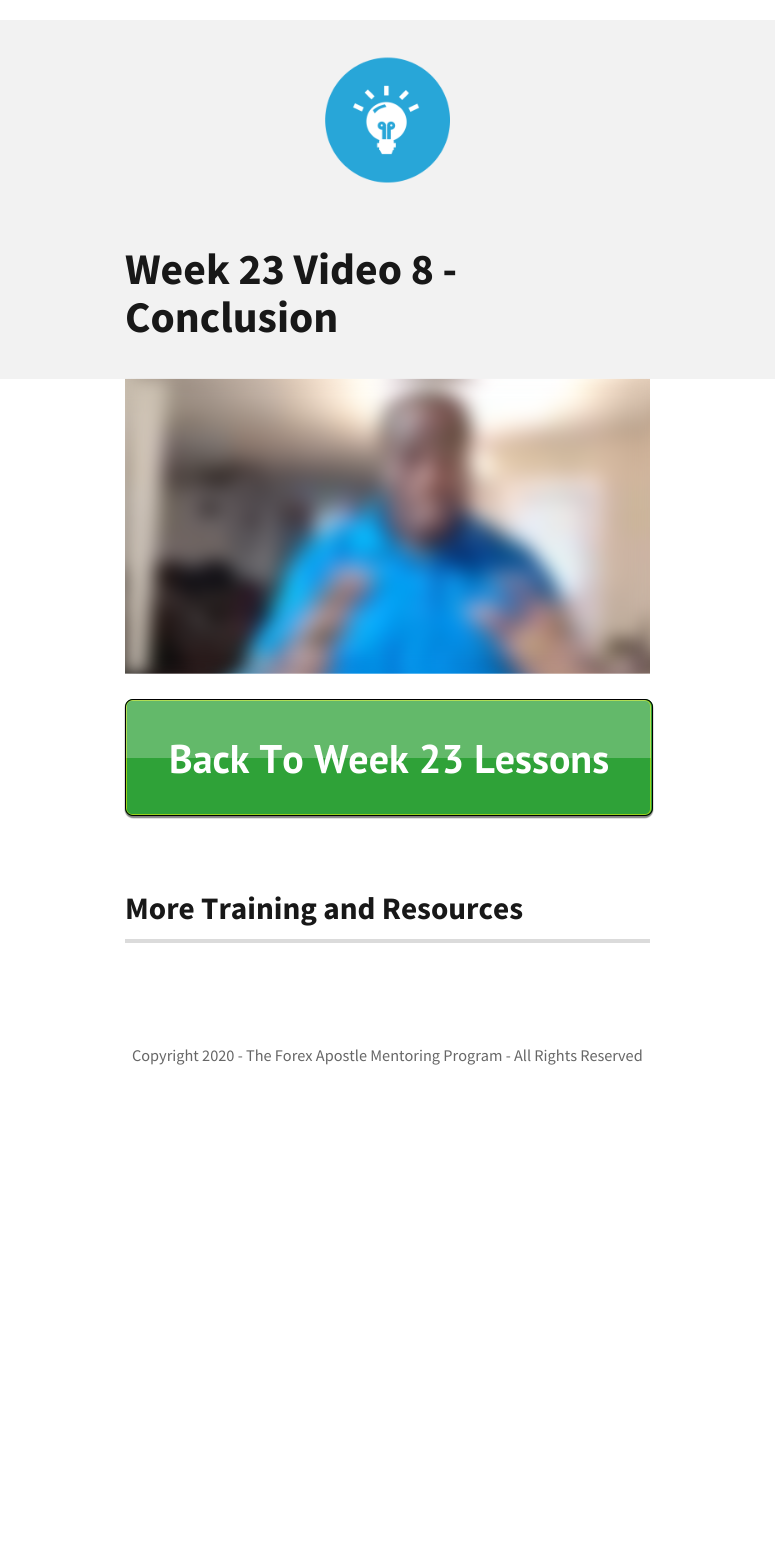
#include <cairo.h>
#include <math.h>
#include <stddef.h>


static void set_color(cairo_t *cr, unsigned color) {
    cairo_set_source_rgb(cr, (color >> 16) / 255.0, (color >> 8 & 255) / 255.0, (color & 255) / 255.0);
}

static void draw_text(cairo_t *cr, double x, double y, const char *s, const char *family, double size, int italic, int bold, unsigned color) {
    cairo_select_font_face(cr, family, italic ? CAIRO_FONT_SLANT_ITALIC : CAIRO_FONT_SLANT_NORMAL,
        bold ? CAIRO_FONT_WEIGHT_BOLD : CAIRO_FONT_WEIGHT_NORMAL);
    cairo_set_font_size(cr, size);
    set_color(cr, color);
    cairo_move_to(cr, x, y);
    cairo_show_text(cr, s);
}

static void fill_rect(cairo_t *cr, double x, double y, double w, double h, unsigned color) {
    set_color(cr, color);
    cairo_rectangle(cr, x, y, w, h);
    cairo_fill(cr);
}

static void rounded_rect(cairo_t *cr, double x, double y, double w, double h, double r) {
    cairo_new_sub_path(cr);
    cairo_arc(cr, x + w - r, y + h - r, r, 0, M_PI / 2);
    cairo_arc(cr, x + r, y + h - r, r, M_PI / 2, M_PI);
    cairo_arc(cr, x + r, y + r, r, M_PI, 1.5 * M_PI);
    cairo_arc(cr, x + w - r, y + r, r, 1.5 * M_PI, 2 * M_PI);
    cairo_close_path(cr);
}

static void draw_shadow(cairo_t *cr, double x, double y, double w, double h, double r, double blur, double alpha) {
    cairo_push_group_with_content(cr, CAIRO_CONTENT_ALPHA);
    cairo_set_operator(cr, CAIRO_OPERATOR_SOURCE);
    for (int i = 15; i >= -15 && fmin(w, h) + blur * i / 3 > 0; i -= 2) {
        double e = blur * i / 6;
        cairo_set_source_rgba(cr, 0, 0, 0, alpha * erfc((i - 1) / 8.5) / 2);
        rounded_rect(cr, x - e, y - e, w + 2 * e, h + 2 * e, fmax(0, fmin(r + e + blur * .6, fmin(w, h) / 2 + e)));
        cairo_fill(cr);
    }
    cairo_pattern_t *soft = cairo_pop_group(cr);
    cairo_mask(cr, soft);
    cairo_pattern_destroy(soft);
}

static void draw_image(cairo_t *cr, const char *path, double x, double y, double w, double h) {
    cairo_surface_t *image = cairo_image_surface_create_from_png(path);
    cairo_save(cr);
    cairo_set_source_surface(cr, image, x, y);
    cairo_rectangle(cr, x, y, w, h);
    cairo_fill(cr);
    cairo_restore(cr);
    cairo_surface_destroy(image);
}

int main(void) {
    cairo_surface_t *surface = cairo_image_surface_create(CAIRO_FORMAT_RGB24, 775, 1545);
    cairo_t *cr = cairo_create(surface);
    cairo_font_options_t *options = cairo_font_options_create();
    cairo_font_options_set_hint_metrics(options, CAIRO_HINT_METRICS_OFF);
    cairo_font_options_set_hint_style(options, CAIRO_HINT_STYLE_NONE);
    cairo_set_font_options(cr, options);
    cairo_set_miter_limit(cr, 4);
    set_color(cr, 0xFFFFFF);
    cairo_paint(cr);
    fill_rect(cr, 0, 20, 775, 359, 0xF2F2F2);
    draw_image(cr, "assets/img1.png", 325, 57, 125, 126);
    draw_text(cr, 125, 284, "Week 23 Video 8 -", "Source Sans Pro", 43.75, 0, 1, 0x181818);
    draw_text(cr, 125, 332, "Conclusion", "Source Sans Pro", 43.75, 0, 1, 0x181818);
    draw_image(cr, "assets/img2.png", 125, 378, 525, 296);
    set_color(cr, 0x000000);
    draw_shadow(cr, 125, 700, 528, 118, 8, 0.5, 0.5);
    set_color(cr, 0x2FA238);
    rounded_rect(cr, 125, 699, 528, 117, 8);
    cairo_fill(cr);
    rounded_rect(cr, 126.5, 700.5, 524, 114, 5.5);
    set_color(cr, 0x97D11C);
    cairo_set_line_width(cr, 1);
    cairo_stroke(cr);
    rounded_rect(cr, 125.5, 699.5, 527, 116, 7.5);
    set_color(cr, 0x000000);
    cairo_stroke(cr);
    cairo_set_source_rgba(cr, 1, 1, 1, 0.25);
    cairo_new_path(cr);
    cairo_move_to(cr, 134, 700);
    cairo_line_to(cr, 643, 700);
    cairo_curve_to(cr, 647.5, 700, 651, 703.5, 651, 708);
    cairo_line_to(cr, 651, 758);
    cairo_line_to(cr, 126, 758);
    cairo_line_to(cr, 126, 708);
    cairo_curve_to(cr, 126, 703.5, 129.5, 700, 134, 700);
    cairo_close_path(cr);
    cairo_fill(cr);
    draw_text(cr, 169, 773, "Back To Week 23 Lessons", "PT Sans", 40, 0, 1, 0xFFFFFF);
    fill_rect(cr, 125, 939, 525, 4, 0xDBDBDB);
    draw_text(cr, 125, 919, "More Training and Resources", "Source Sans Pro", 31.25, 0, 1, 0x181818);
    draw_text(cr, 132, 1061, "Copyright 2020 - The Forex Apostle Mentoring Program - All Rights Reserved", "Source Sans Pro", 16.25, 0, 0, 0x666666);
    cairo_surface_write_to_png(surface, "output.png");
    cairo_font_options_destroy(options);
    cairo_destroy(cr);
    cairo_surface_destroy(surface);
    return 0;
}
